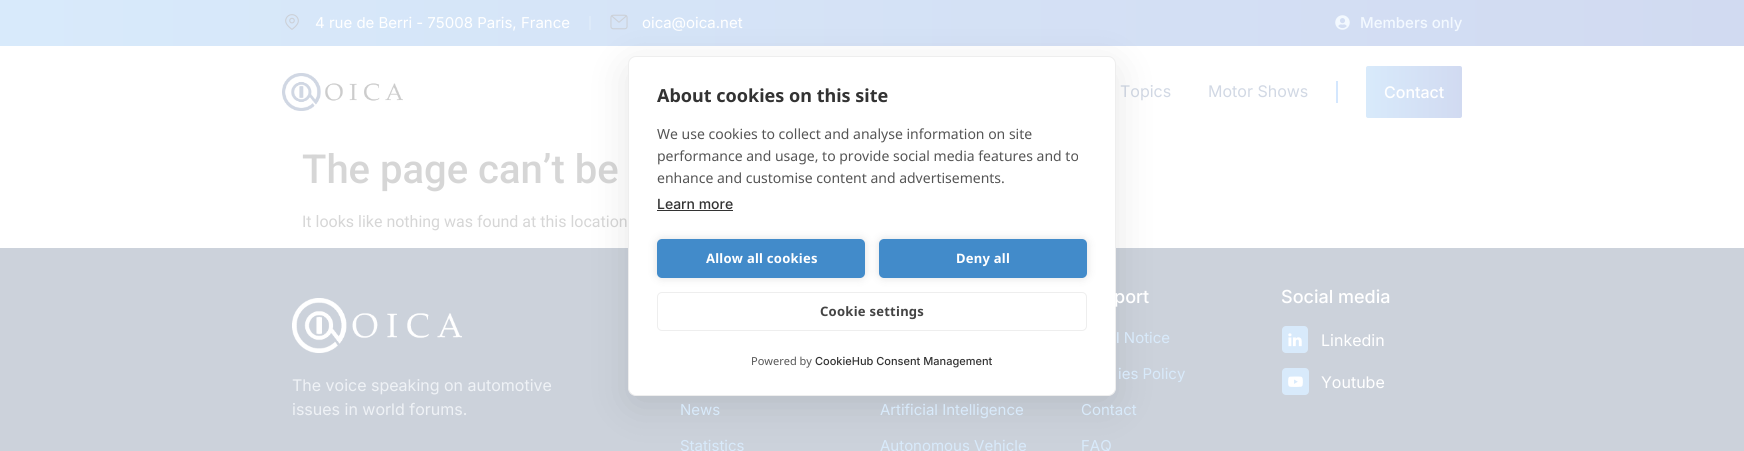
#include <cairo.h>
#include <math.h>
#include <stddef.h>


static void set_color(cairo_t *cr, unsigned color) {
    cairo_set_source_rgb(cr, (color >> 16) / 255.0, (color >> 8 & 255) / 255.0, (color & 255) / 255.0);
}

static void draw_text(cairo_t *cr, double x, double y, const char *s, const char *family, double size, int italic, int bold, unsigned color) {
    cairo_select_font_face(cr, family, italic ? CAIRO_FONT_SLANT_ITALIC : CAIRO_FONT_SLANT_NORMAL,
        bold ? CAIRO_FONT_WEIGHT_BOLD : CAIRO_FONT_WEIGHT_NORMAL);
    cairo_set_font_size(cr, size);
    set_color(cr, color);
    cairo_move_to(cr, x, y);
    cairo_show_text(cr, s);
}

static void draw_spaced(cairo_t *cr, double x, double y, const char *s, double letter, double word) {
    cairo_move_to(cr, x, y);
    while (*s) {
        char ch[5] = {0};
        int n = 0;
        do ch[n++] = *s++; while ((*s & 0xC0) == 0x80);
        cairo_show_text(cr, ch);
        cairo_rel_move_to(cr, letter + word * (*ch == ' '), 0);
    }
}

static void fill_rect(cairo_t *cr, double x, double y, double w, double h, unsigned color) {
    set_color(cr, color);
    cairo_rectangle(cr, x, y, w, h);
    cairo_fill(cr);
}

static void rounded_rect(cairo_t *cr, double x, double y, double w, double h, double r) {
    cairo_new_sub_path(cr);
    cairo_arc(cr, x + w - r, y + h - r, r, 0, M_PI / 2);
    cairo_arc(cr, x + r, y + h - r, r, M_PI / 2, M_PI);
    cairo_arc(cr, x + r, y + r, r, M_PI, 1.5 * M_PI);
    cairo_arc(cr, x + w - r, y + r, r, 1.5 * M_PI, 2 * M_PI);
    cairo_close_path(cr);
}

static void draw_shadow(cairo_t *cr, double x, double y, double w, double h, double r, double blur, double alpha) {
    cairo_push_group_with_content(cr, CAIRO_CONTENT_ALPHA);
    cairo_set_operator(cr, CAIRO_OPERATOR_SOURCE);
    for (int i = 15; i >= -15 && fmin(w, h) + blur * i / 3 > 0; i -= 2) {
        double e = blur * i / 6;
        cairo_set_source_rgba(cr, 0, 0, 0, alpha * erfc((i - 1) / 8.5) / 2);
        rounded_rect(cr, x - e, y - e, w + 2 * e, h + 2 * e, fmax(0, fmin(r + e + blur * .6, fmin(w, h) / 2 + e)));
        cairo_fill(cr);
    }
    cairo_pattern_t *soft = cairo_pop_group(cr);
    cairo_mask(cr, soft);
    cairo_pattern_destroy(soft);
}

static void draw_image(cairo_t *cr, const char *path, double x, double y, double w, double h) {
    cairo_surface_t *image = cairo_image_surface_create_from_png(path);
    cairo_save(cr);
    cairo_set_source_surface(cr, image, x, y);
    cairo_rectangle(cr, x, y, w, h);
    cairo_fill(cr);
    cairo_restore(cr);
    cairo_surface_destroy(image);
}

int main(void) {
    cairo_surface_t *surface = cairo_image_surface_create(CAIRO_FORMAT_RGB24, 1744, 451);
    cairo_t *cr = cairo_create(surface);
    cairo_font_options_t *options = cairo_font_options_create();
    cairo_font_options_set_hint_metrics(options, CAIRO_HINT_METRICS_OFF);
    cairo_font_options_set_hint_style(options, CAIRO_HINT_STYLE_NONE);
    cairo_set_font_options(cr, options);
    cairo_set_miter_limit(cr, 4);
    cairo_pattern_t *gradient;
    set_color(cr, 0xFFFFFF);
    cairo_paint(cr);
    gradient = cairo_pattern_create_linear(0, 23, 1744, 23);
    cairo_pattern_add_color_stop_rgba(gradient, 0, 0.847, 0.918, 0.984, 1);
    cairo_pattern_add_color_stop_rgba(gradient, 1, 0.82, 0.855, 0.945, 1);
    cairo_set_source(cr, gradient);
    cairo_pattern_destroy(gradient);
    cairo_rectangle(cr, 0, 0, 1744, 46);
    cairo_fill(cr);
    draw_image(cr, "assets/img1.png", 285, 14, 14, 16);
    draw_text(cr, 315, 28, "4 rue de Berri - 75008 Paris, France", "Inter", 15, 0, 0, 0xFFFFFF);
    fill_rect(cr, 589, 16, 2, 14, 0xDDEAF9);
    draw_image(cr, "assets/img2.png", 610, 14, 18, 16);
    draw_text(cr, 642, 28, "oica@oica.net", "Inter", 15, 0, 0, 0xFFFFFF);
    draw_image(cr, "assets/img3.png", 1335, 15, 15, 15);
    draw_text(cr, 1360, 28, "Members only", "Inter Medium", 15, 0, 0, 0xF3F9FF);
    draw_image(cr, "assets/img4.png", 282, 73, 121, 38);
    draw_text(cr, 1120, 97, "Topics", "Inter", 16, 0, 0, 0xD1D8E4);
    draw_text(cr, 1208, 97, "Motor Shows", "Inter", 16, 0, 0, 0xD1D8E4);
    fill_rect(cr, 1336, 81, 2, 22, 0xD4E7FE);
    gradient = cairo_pattern_create_linear(1366, 92, 1462, 92);
    cairo_pattern_add_color_stop_rgba(gradient, 0, 0.847, 0.918, 0.984, 1);
    cairo_pattern_add_color_stop_rgba(gradient, 1, 0.82, 0.855, 0.945, 1);
    cairo_set_source(cr, gradient);
    cairo_pattern_destroy(gradient);
    rounded_rect(cr, 1366, 66, 96, 52, 2);
    cairo_fill(cr);
    draw_text(cr, 1384, 98, "Contact", "Inter Medium", 16, 0, 0, 0xFFFFFF);
    draw_text(cr, 302, 183, "The page can’t be", "Roboto Medium", 40, 0, 0, 0xD6D6D6);
    draw_text(cr, 302, 227, "It looks like nothing was found at this location", "Roboto", 16, 0, 0, 0xD6D6D6);
    fill_rect(cr, 0, 248, 1744, 203, 0xCCD2DB);
    set_color(cr, 0x000000);
    draw_shadow(cr, 628, 66, 488, 340, 8, 20, 0.1);
    set_color(cr, 0xFFFFFF);
    rounded_rect(cr, 628.5, 56.5, 487, 339, 7.5);
    cairo_fill_preserve(cr);
    set_color(cr, 0xEEEEEE);
    cairo_set_line_width(cr, 1);
    cairo_stroke(cr);
    draw_text(cr, 657, 102, "About cookies on this site", "Noto Sans", 18, 0, 1, 0x333333);
    draw_text(cr, 657, 139, "We use cookies to collect and analyse information on site", "Noto Sans", 14, 0, 0, 0x555555);
    draw_text(cr, 657, 161, "performance and usage, to provide social media features and to", "Noto Sans", 14, 0, 0, 0x555555);
    draw_text(cr, 657, 183, "enhance and customise content and advertisements.", "Noto Sans", 14, 0, 0, 0x555555);
    draw_text(cr, 657, 209, "Learn more", "Inter Medium", 14, 0, 0, 0x333333);
    fill_rect(cr, 657, 210, 76, 1, 0x333333);
    set_color(cr, 0x000000);
    draw_shadow(cr, 657, 239, 208, 39, 5, 5, 0.12);
    set_color(cr, 0x428BCA);
    rounded_rect(cr, 657, 239, 208, 39, 5);
    cairo_fill(cr);
    cairo_select_font_face(cr, "Noto Sans", CAIRO_FONT_SLANT_NORMAL, CAIRO_FONT_WEIGHT_BOLD);
    cairo_set_font_size(cr, 13);
    set_color(cr, 0xFFFFFF);
    draw_spaced(cr, 706, 263, "Allow all cookies", 0.25, 0);
    set_color(cr, 0x000000);
    draw_shadow(cr, 879, 239, 208, 39, 5, 5, 0.12);
    set_color(cr, 0x428BCA);
    rounded_rect(cr, 879, 239, 208, 39, 5);
    cairo_fill(cr);
    set_color(cr, 0xFFFFFF);
    draw_spaced(cr, 956, 263, "Deny all", 0.25, 0);
    rounded_rect(cr, 657.5, 292.5, 429, 38, 4.5);
    set_color(cr, 0xEEEEEE);
    cairo_stroke(cr);
    set_color(cr, 0x444444);
    draw_spaced(cr, 820, 316, "Cookie settings", 0.25, 0);
    draw_text(cr, 751, 365, "Powered by", "Noto Sans", 11, 0, 0, 0x555555);
    draw_text(cr, 815, 365, "CookieHub Consent Management", "Inter Medium", 11, 0, 0, 0x333333);
    draw_image(cr, "assets/img5.png", 292, 298, 170, 55);
    draw_text(cr, 292, 391, "The voice speaking on automotive", "Inter", 16, 0, 0, 0xEFF2F6);
    draw_text(cr, 292, 415, "issues in world forums.", "Inter", 16, 0, 0, 0xEFF2F6);
    draw_text(cr, 1114, 303, "port", "Inter Medium", 18, 0, 0, 0xFFFFFF);
    draw_text(cr, 1116, 343, "l Notice", "Inter", 15, 0, 0, 0xD8EAFB);
    draw_text(cr, 1118, 379, "ies Policy", "Inter", 15, 0, 0, 0xD8EAFB);
    draw_text(cr, 1081, 415, "Contact", "Inter", 15, 0, 0, 0xD8EAFB);
    draw_text(cr, 1081, 451, "FAQ", "Inter", 15, 0, 0, 0xD8EAFB);
    draw_text(cr, 1281, 303, "Social media", "Inter Medium", 18, 0, 0, 0xFFFFFF);
    draw_image(cr, "assets/img6.png", 1282, 326, 26, 27);
    draw_text(cr, 1321, 346, "Linkedin", "Inter", 16, 0, 0, 0xFFFFFF);
    draw_image(cr, "assets/img7.png", 1282, 368, 27, 27);
    draw_text(cr, 1321, 388, "Youtube", "Inter", 16, 0, 0, 0xFFFFFF);
    draw_text(cr, 680, 415, "News", "Inter", 15, 0, 0, 0xD8EAFB);
    draw_text(cr, 680, 451, "Statistics", "Inter", 15, 0, 0, 0xD8EAFB);
    draw_text(cr, 880, 415, "Artificial Intelligence", "Inter", 15, 0, 0, 0xD8EAFB);
    draw_text(cr, 880, 451, "Autonomous Vehicle", "Inter", 15, 0, 0, 0xD8EAFB);
    cairo_surface_write_to_png(surface, "output.png");
    cairo_font_options_destroy(options);
    cairo_destroy(cr);
    cairo_surface_destroy(surface);
    return 0;
}
